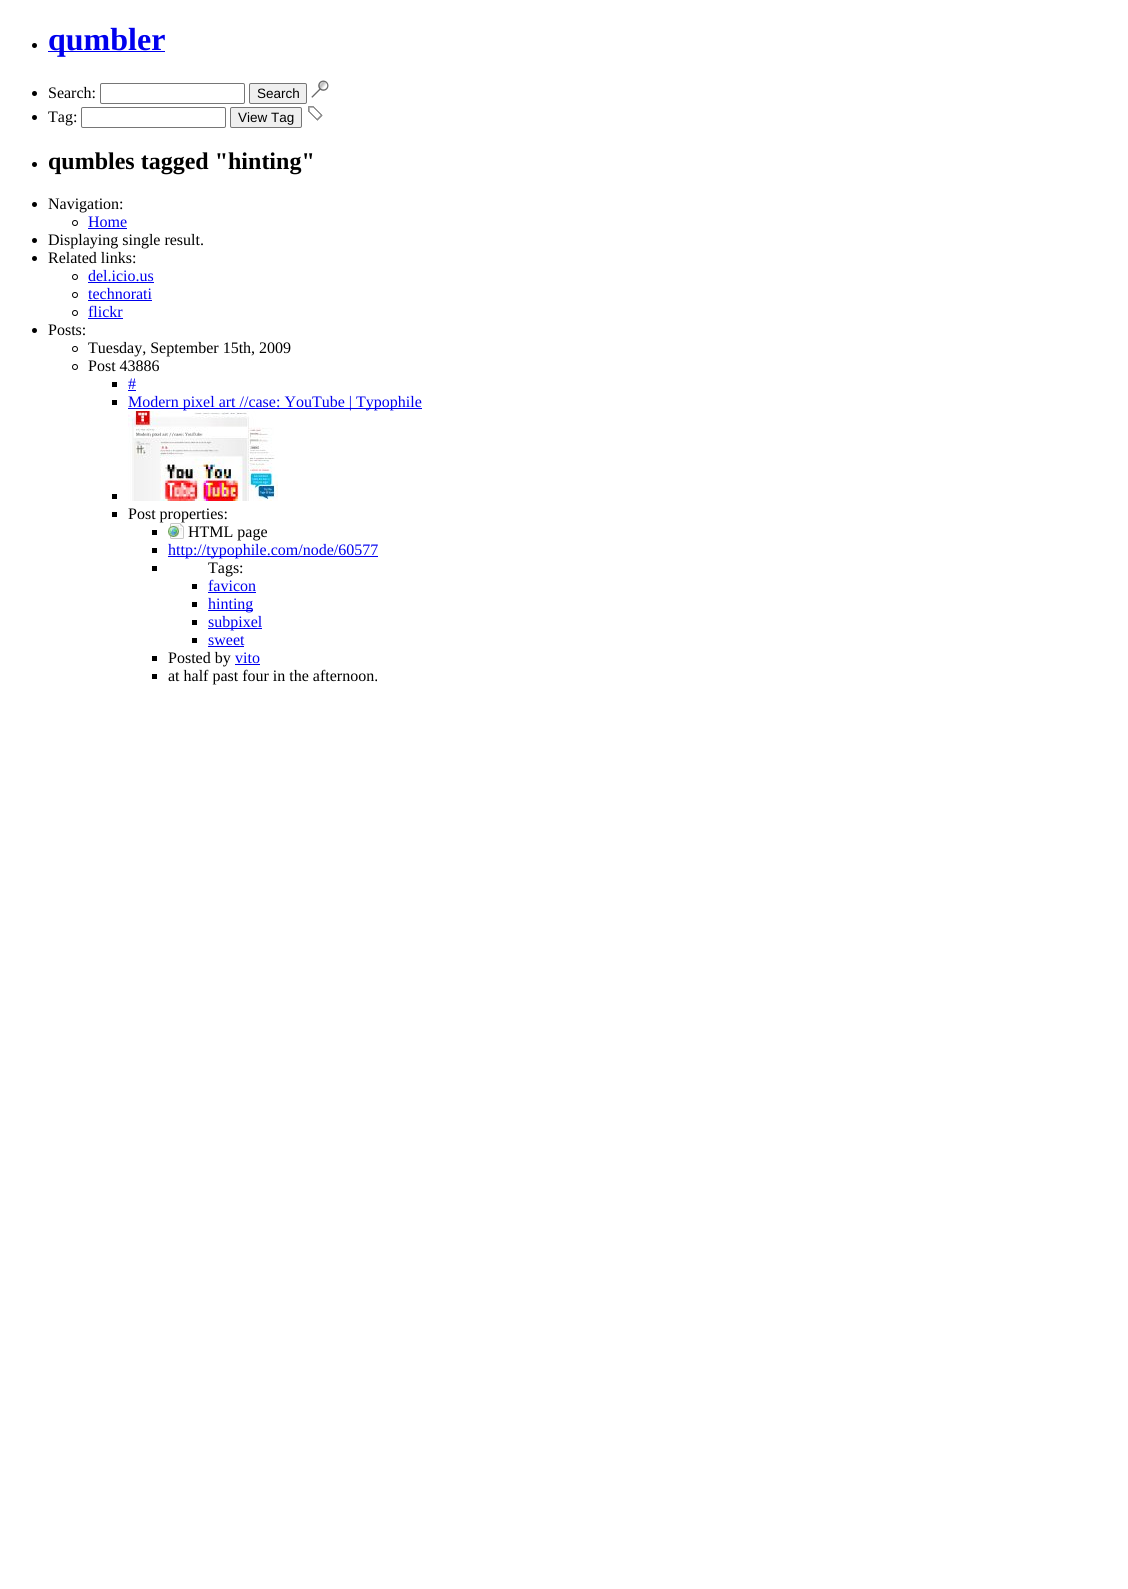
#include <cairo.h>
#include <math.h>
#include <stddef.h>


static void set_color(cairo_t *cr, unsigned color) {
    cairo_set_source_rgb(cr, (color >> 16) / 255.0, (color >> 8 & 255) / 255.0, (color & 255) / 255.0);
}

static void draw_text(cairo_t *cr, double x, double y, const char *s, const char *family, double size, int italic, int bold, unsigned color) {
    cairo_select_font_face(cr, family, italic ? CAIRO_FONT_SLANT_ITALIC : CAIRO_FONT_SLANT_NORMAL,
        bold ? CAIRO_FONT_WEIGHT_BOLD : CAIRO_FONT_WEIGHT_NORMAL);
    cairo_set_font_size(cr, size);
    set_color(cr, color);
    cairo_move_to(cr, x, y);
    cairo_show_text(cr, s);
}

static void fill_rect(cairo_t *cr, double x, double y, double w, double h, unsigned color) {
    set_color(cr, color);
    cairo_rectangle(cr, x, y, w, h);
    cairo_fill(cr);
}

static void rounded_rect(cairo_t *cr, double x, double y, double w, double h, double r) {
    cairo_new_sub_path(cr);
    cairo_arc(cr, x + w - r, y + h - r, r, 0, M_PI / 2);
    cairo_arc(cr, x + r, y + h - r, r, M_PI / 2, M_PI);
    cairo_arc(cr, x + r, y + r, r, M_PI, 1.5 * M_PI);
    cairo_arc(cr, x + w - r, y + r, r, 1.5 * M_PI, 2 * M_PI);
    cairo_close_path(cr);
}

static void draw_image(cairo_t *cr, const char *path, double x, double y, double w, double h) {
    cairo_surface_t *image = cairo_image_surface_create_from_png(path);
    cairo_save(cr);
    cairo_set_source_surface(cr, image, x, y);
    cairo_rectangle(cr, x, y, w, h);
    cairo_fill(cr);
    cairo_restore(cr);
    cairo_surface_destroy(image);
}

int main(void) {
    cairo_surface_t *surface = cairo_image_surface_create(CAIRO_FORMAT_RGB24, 1128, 1589);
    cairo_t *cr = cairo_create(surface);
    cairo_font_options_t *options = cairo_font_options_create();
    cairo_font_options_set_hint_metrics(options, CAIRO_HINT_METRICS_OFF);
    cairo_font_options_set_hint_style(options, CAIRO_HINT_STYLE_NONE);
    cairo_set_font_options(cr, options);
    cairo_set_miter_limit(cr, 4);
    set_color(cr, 0xFFFFFF);
    cairo_paint(cr);
    set_color(cr, 0x000000);
    cairo_arc(cr, 34.5, 45.5, 2.5, 0, 2 * M_PI);
    cairo_fill(cr);
    fill_rect(cr, 48, 51, 117, 1, 0x0000EE);
    draw_text(cr, 48, 50, "qumbler", "Liberation Serif", 32, 0, 1, 0x0000EE);
    set_color(cr, 0x000000);
    cairo_new_path(cr);
    cairo_arc(cr, 34.5, 93.5, 2.5, 0, 2 * M_PI);
    cairo_fill(cr);
    draw_text(cr, 48, 98, "Search:", "Liberation Serif", 16, 0, 0, 0x000000);
    rounded_rect(cr, 100.5, 83.5, 144, 20, 1.5);
    set_color(cr, 0x767676);
    cairo_set_line_width(cr, 1);
    cairo_stroke(cr);
    set_color(cr, 0xEFEFEF);
    rounded_rect(cr, 249.5, 83.5, 57, 20, 1.5);
    cairo_fill_preserve(cr);
    set_color(cr, 0x767676);
    cairo_stroke(cr);
    draw_text(cr, 257, 98, "Search", "Liberation Sans", 13.5, 0, 0, 0x000000);
    draw_image(cr, "assets/img1.png", 311, 80, 18, 18);
    cairo_arc(cr, 34.5, 117.5, 2.5, 0, 2 * M_PI);
    cairo_fill(cr);
    draw_text(cr, 48, 122, "Tag:", "Liberation Serif", 16, 0, 0, 0x000000);
    rounded_rect(cr, 81.5, 107.5, 144, 20, 1.5);
    set_color(cr, 0x767676);
    cairo_stroke(cr);
    set_color(cr, 0xEFEFEF);
    rounded_rect(cr, 230.5, 107.5, 71, 20, 1.5);
    cairo_fill_preserve(cr);
    set_color(cr, 0x767676);
    cairo_stroke(cr);
    draw_text(cr, 238, 122, "View Tag", "Liberation Sans", 13.5, 0, 0, 0x000000);
    draw_image(cr, "assets/img2.png", 308, 106, 15, 15);
    cairo_arc(cr, 34.5, 164.5, 2.5, 0, 2 * M_PI);
    cairo_fill(cr);
    draw_text(cr, 48, 169, "qumbles tagged \"hinting\"", "Liberation Serif", 24, 0, 1, 0x000000);
    cairo_new_path(cr);
    cairo_arc(cr, 34.5, 204.5, 2.5, 0, 2 * M_PI);
    cairo_fill(cr);
    draw_text(cr, 48, 209, "Navigation:", "Liberation Serif", 16, 0, 0, 0x000000);
    cairo_new_path(cr);
    cairo_arc(cr, 75, 223, 2.5, 0, 2 * M_PI);
    cairo_stroke(cr);
    draw_text(cr, 88, 227, "Home", "Liberation Serif", 16, 0, 0, 0x0000EE);
    fill_rect(cr, 88, 228, 39, 1, 0x0000EE);
    set_color(cr, 0x000000);
    cairo_new_path(cr);
    cairo_arc(cr, 34.5, 240.5, 2.5, 0, 2 * M_PI);
    cairo_fill(cr);
    draw_text(cr, 48, 245, "Displaying single result.", "Liberation Serif", 16, 0, 0, 0x000000);
    cairo_new_path(cr);
    cairo_arc(cr, 34.5, 258.5, 2.5, 0, 2 * M_PI);
    cairo_fill(cr);
    draw_text(cr, 48, 263, "Related links:", "Liberation Serif", 16, 0, 0, 0x000000);
    cairo_new_path(cr);
    cairo_arc(cr, 75, 277, 2.5, 0, 2 * M_PI);
    cairo_stroke(cr);
    draw_text(cr, 88, 281, "del.icio.us", "Liberation Serif", 16, 0, 0, 0x0000EE);
    fill_rect(cr, 88, 282, 66, 1, 0x0000EE);
    cairo_new_path(cr);
    cairo_arc(cr, 75, 295, 2.5, 0, 2 * M_PI);
    set_color(cr, 0x000000);
    cairo_stroke(cr);
    draw_text(cr, 88, 299, "technorati", "Liberation Serif", 16, 0, 0, 0x0000EE);
    fill_rect(cr, 88, 300, 64, 1, 0x0000EE);
    cairo_new_path(cr);
    cairo_arc(cr, 75, 313, 2.5, 0, 2 * M_PI);
    set_color(cr, 0x000000);
    cairo_stroke(cr);
    draw_text(cr, 88, 317, "flickr", "Liberation Serif", 16, 0, 0, 0x0000EE);
    fill_rect(cr, 88, 318, 35, 1, 0x0000EE);
    set_color(cr, 0x000000);
    cairo_new_path(cr);
    cairo_arc(cr, 34.5, 330.5, 2.5, 0, 2 * M_PI);
    cairo_fill(cr);
    draw_text(cr, 48, 335, "Posts:", "Liberation Serif", 16, 0, 0, 0x000000);
    cairo_new_path(cr);
    cairo_arc(cr, 75, 349, 2.5, 0, 2 * M_PI);
    cairo_stroke(cr);
    draw_text(cr, 88, 353, "Tuesday, September 15th, 2009", "Liberation Serif", 16, 0, 0, 0x000000);
    cairo_new_path(cr);
    cairo_arc(cr, 75, 367, 2.5, 0, 2 * M_PI);
    cairo_stroke(cr);
    draw_text(cr, 88, 371, "Post 43886", "Liberation Serif", 16, 0, 0, 0x000000);
    fill_rect(cr, 112, 382, 5, 5, 0x000000);
    draw_text(cr, 128, 389, "#", "Liberation Serif", 16, 0, 0, 0x0000EE);
    fill_rect(cr, 128, 390, 8, 1, 0x0000EE);
    fill_rect(cr, 112, 400, 5, 5, 0x000000);
    fill_rect(cr, 128, 408, 294, 1, 0x0000EE);
    draw_text(cr, 128, 407, "Modern pixel art //case: YouTube | Typophile", "Liberation Serif", 16, 0, 0, 0x0000EE);
    fill_rect(cr, 112, 494, 5, 5, 0x000000);
    draw_image(cr, "assets/img3.png", 128, 411, 150, 90);
    fill_rect(cr, 112, 512, 5, 5, 0x000000);
    draw_text(cr, 128, 519, "Post properties:", "Liberation Serif", 16, 0, 0, 0x000000);
    fill_rect(cr, 152, 530, 5, 5, 0x000000);
    draw_image(cr, "assets/img4.png", 168, 523, 16, 16);
    draw_text(cr, 188, 537, "HTML page", "Liberation Serif", 16, 0, 0, 0x000000);
    fill_rect(cr, 152, 548, 5, 5, 0x000000);
    fill_rect(cr, 168, 556, 210, 1, 0x0000EE);
    draw_text(cr, 168, 555, "http://typophile.com/node/60577", "Liberation Serif", 16, 0, 0, 0x0000EE);
    fill_rect(cr, 152, 566, 5, 5, 0x000000);
    draw_text(cr, 208, 573, "Tags:", "Liberation Serif", 16, 0, 0, 0x000000);
    fill_rect(cr, 192, 584, 5, 5, 0x000000);
    draw_text(cr, 208, 591, "favicon", "Liberation Serif", 16, 0, 0, 0x0000EE);
    fill_rect(cr, 208, 592, 48, 1, 0x0000EE);
    fill_rect(cr, 192, 602, 5, 5, 0x000000);
    fill_rect(cr, 208, 610, 45, 1, 0x0000EE);
    draw_text(cr, 208, 609, "hinting", "Liberation Serif", 16, 0, 0, 0x0000EE);
    fill_rect(cr, 192, 620, 5, 5, 0x000000);
    fill_rect(cr, 208, 628, 54, 1, 0x0000EE);
    draw_text(cr, 208, 627, "subpixel", "Liberation Serif", 16, 0, 0, 0x0000EE);
    fill_rect(cr, 192, 638, 5, 5, 0x000000);
    draw_text(cr, 208, 645, "sweet", "Liberation Serif", 16, 0, 0, 0x0000EE);
    fill_rect(cr, 208, 646, 36, 1, 0x0000EE);
    fill_rect(cr, 152, 656, 5, 5, 0x000000);
    draw_text(cr, 168, 663, "Posted by", "Liberation Serif", 16, 0, 0, 0x000000);
    draw_text(cr, 235, 663, "vito", "Liberation Serif", 16, 0, 0, 0x0000EE);
    fill_rect(cr, 235, 664, 25, 1, 0x0000EE);
    fill_rect(cr, 152, 674, 5, 5, 0x000000);
    draw_text(cr, 168, 681, "at half past four in the afternoon.", "Liberation Serif", 16, 0, 0, 0x000000);
    cairo_surface_write_to_png(surface, "output.png");
    cairo_font_options_destroy(options);
    cairo_destroy(cr);
    cairo_surface_destroy(surface);
    return 0;
}
